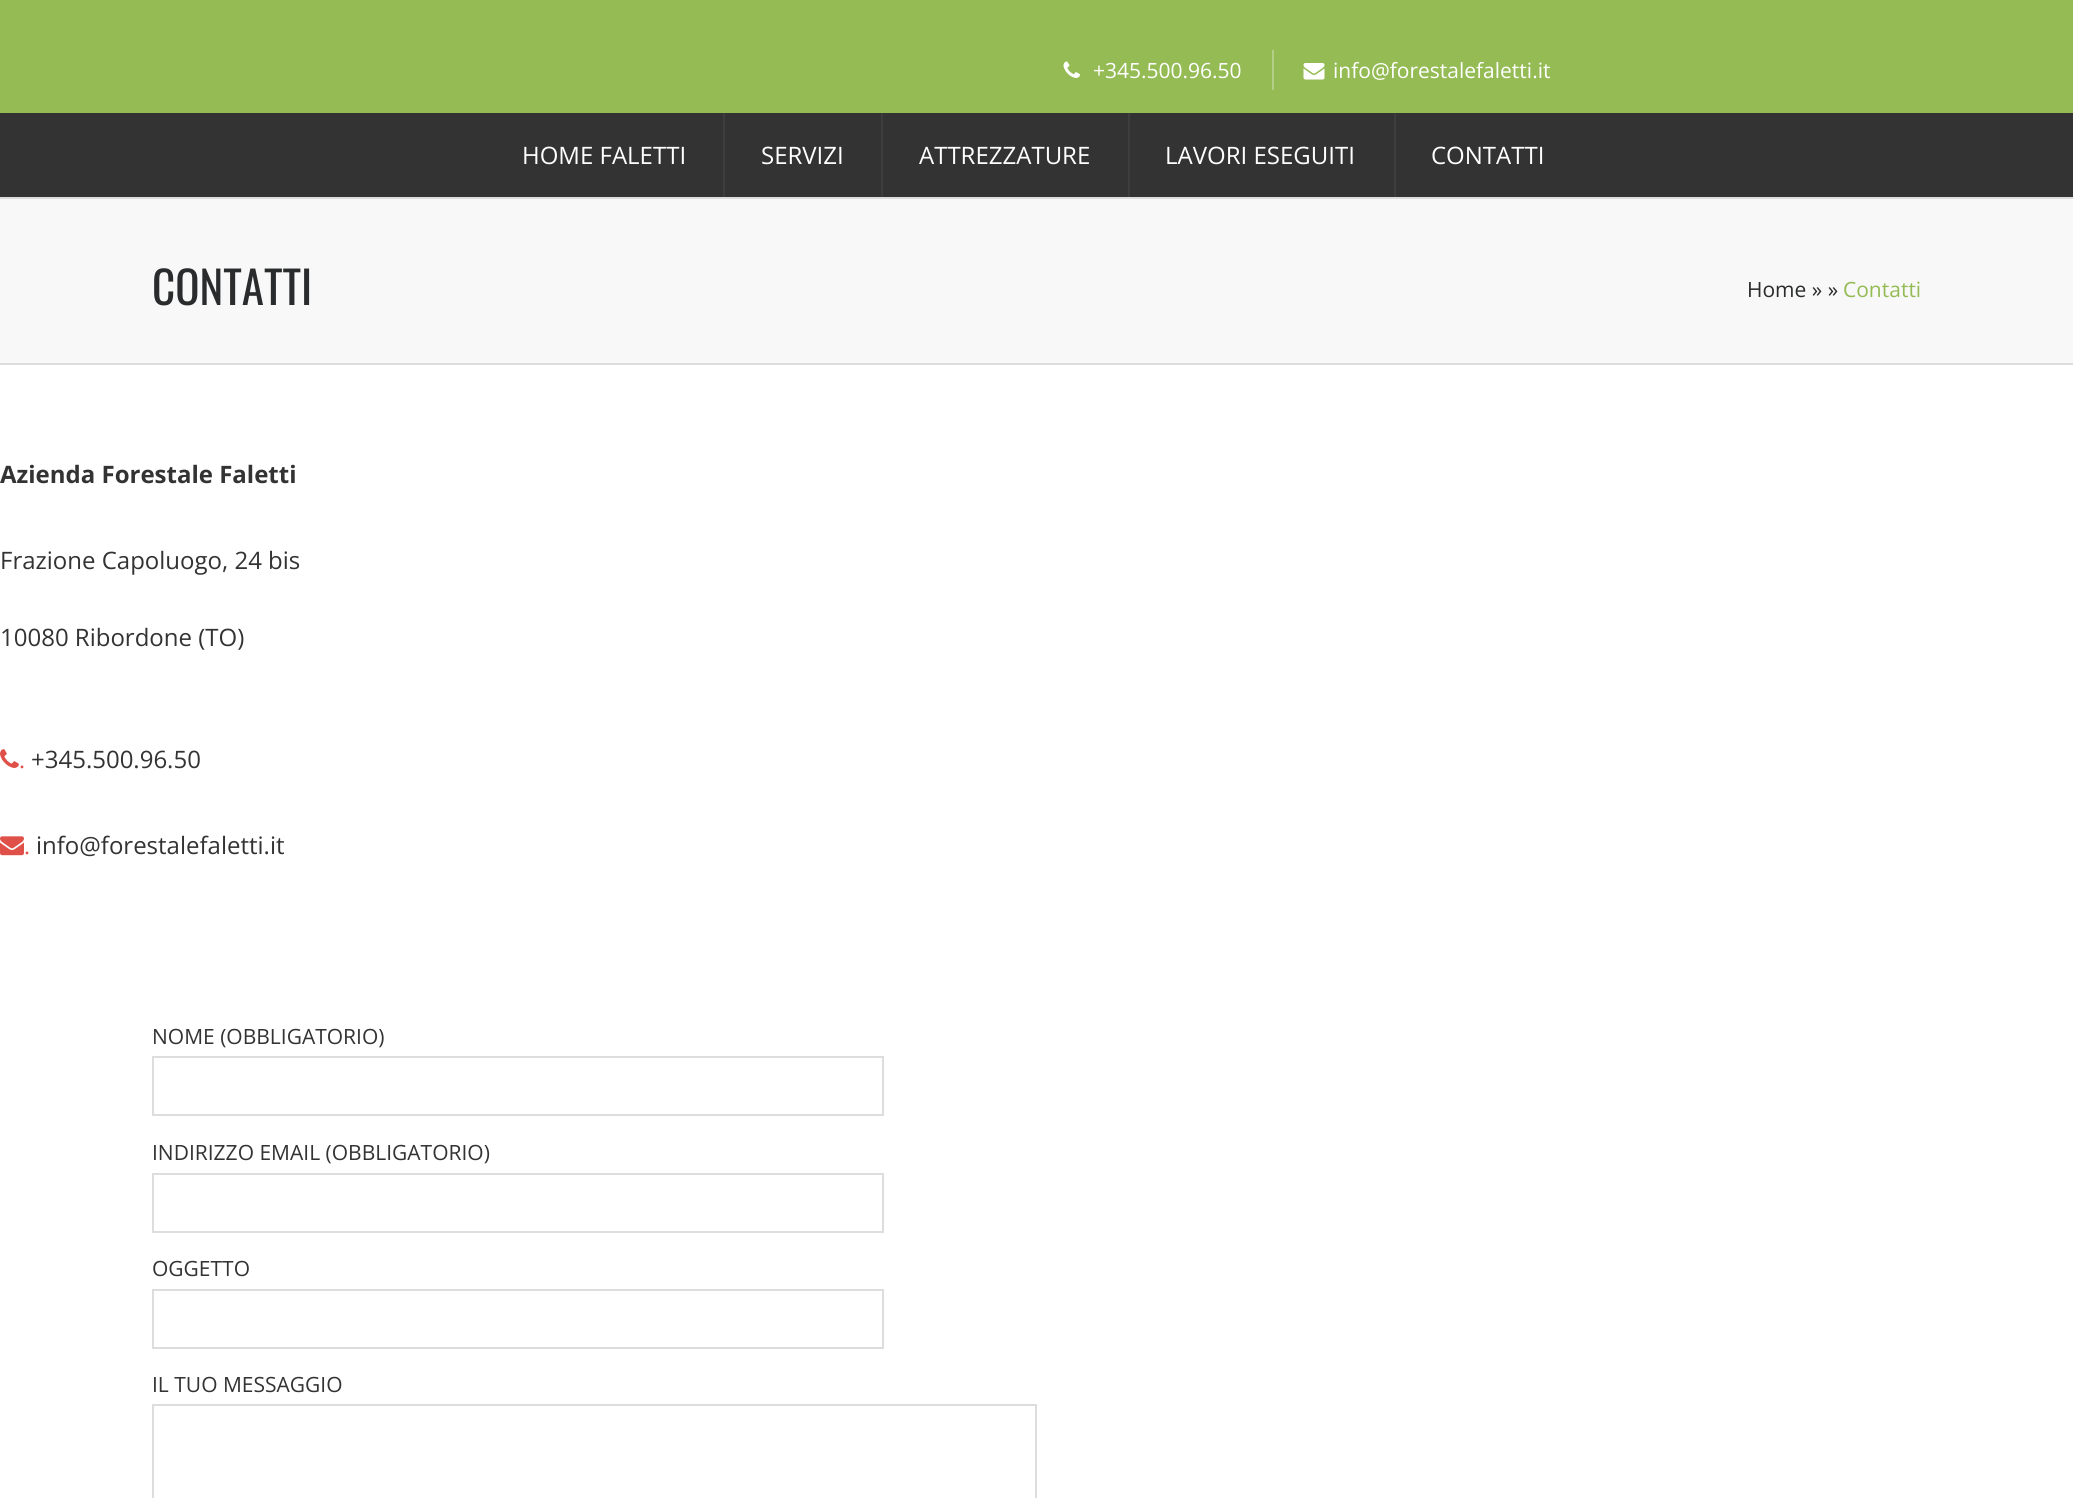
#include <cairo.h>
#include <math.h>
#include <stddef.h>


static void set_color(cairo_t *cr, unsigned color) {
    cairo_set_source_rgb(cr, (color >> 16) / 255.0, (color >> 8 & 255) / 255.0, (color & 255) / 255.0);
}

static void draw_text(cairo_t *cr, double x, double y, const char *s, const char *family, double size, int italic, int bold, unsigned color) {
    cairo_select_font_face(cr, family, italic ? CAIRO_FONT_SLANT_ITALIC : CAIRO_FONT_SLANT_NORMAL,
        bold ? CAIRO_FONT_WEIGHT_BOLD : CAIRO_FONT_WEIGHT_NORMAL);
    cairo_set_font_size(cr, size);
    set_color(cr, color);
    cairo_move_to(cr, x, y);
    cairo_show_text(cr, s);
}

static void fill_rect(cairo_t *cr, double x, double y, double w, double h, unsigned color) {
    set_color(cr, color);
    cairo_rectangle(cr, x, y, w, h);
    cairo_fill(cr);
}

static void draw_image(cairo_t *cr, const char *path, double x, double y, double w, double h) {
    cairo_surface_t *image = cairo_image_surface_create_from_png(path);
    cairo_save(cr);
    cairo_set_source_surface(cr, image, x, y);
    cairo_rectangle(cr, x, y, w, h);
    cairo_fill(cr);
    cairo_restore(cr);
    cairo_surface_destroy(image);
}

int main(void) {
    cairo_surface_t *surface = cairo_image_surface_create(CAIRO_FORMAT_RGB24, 2073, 1498);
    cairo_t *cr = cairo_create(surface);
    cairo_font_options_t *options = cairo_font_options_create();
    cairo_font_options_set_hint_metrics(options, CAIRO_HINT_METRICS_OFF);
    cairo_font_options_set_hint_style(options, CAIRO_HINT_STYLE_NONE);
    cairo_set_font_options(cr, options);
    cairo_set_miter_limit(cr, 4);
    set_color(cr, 0xFFFFFF);
    cairo_paint(cr);
    fill_rect(cr, 0, 0, 2073, 113, 0x94BB54);
    fill_rect(cr, 1272, 50, 2, 40, 0xB4CF87);
    draw_image(cr, "assets/img1.png", 1063, 61, 17, 17);
    draw_text(cr, 1093, 78, "+345.500.96.50", "Open Sans", 21, 0, 0, 0xFFFFFF);
    draw_image(cr, "assets/img2.png", 1303, 63, 22, 17);
    draw_text(cr, 1333, 78, "info@forestalefaletti.it", "Open Sans", 21, 0, 0, 0xFFFFFF);
    fill_rect(cr, 0, 113, 2073, 84, 0x333333);
    fill_rect(cr, 723, 113, 2, 84, 0x3D3D3D);
    draw_text(cr, 522, 164, "HOME FALETTI", "Open Sans", 24, 0, 0, 0xFFFFFF);
    fill_rect(cr, 881, 113, 2, 84, 0x3D3D3D);
    draw_text(cr, 761, 164, "SERVIZI", "Open Sans", 24, 0, 0, 0xFFFFFF);
    fill_rect(cr, 1128, 113, 2, 84, 0x3D3D3D);
    draw_text(cr, 919, 164, "ATTREZZATURE", "Open Sans", 24, 0, 0, 0xFFFFFF);
    fill_rect(cr, 1394, 113, 2, 84, 0x3D3D3D);
    draw_text(cr, 1165, 164, "LAVORI ESEGUITI", "Open Sans", 24, 0, 0, 0xFFFFFF);
    draw_text(cr, 1431, 164, "CONTATTI", "Open Sans", 24, 0, 0, 0xFFFFFF);
    fill_rect(cr, 0, 199, 2073, 164, 0xF8F8F8);
    fill_rect(cr, 0, 197, 2073, 2, 0xDDDDDD);
    fill_rect(cr, 0, 363, 2073, 2, 0xDDDDDD);
    draw_text(cr, 152, 305, "CONTATTI", "Oswald", 45, 0, 0, 0x2A2B2C);
    draw_text(cr, 1747, 297, "Home » »", "Open Sans", 21, 0, 0, 0x2A2B2C);
    draw_text(cr, 1843, 297, "Contatti", "Open Sans", 21, 0, 0, 0x94BB54);
    draw_text(cr, 0, 483, "Azienda Forestale Faletti", "Open Sans", 24, 0, 1, 0x333333);
    draw_text(cr, 0, 569, "Frazione Capoluogo, 24 bis", "Open Sans", 24, 0, 0, 0x333333);
    draw_text(cr, 0, 646, "10080 Ribordone (TO)", "Open Sans", 24, 0, 0, 0x333333);
    draw_image(cr, "assets/img3.png", 0, 749, 19, 19);
    draw_text(cr, 19, 768, ".", "Liberation Serif", 24, 0, 0, 0xDF5148);
    draw_text(cr, 31, 768, "+345.500.96.50", "Open Sans", 24, 0, 0, 0x333333);
    draw_image(cr, "assets/img4.png", 0, 836, 24, 20);
    draw_text(cr, 24, 854, ".", "Liberation Serif", 24, 0, 0, 0xDF5148);
    draw_text(cr, 36, 854, "info@forestalefaletti.it", "Open Sans", 24, 0, 0, 0x333333);
    draw_text(cr, 152, 1044, "NOME (OBBLIGATORIO)", "Open Sans", 21, 0, 0, 0x333333);
    cairo_rectangle(cr, 153, 1057, 730, 58);
    set_color(cr, 0xDDDDDD);
    cairo_stroke(cr);
    draw_text(cr, 152, 1160, "INDIRIZZO EMAIL (OBBLIGATORIO)", "Open Sans", 21, 0, 0, 0x333333);
    cairo_rectangle(cr, 153, 1174, 730, 58);
    set_color(cr, 0xDDDDDD);
    cairo_stroke(cr);
    draw_text(cr, 152, 1276, "OGGETTO", "Open Sans", 21, 0, 0, 0x333333);
    cairo_rectangle(cr, 153, 1290, 730, 58);
    set_color(cr, 0xDDDDDD);
    cairo_stroke(cr);
    draw_text(cr, 152, 1392, "IL TUO MESSAGGIO", "Open Sans", 21, 0, 0, 0x333333);
    cairo_rectangle(cr, 153, 1405, 883, 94);
    set_color(cr, 0xDDDDDD);
    cairo_stroke(cr);
    cairo_surface_write_to_png(surface, "output.png");
    cairo_font_options_destroy(options);
    cairo_destroy(cr);
    cairo_surface_destroy(surface);
    return 0;
}
